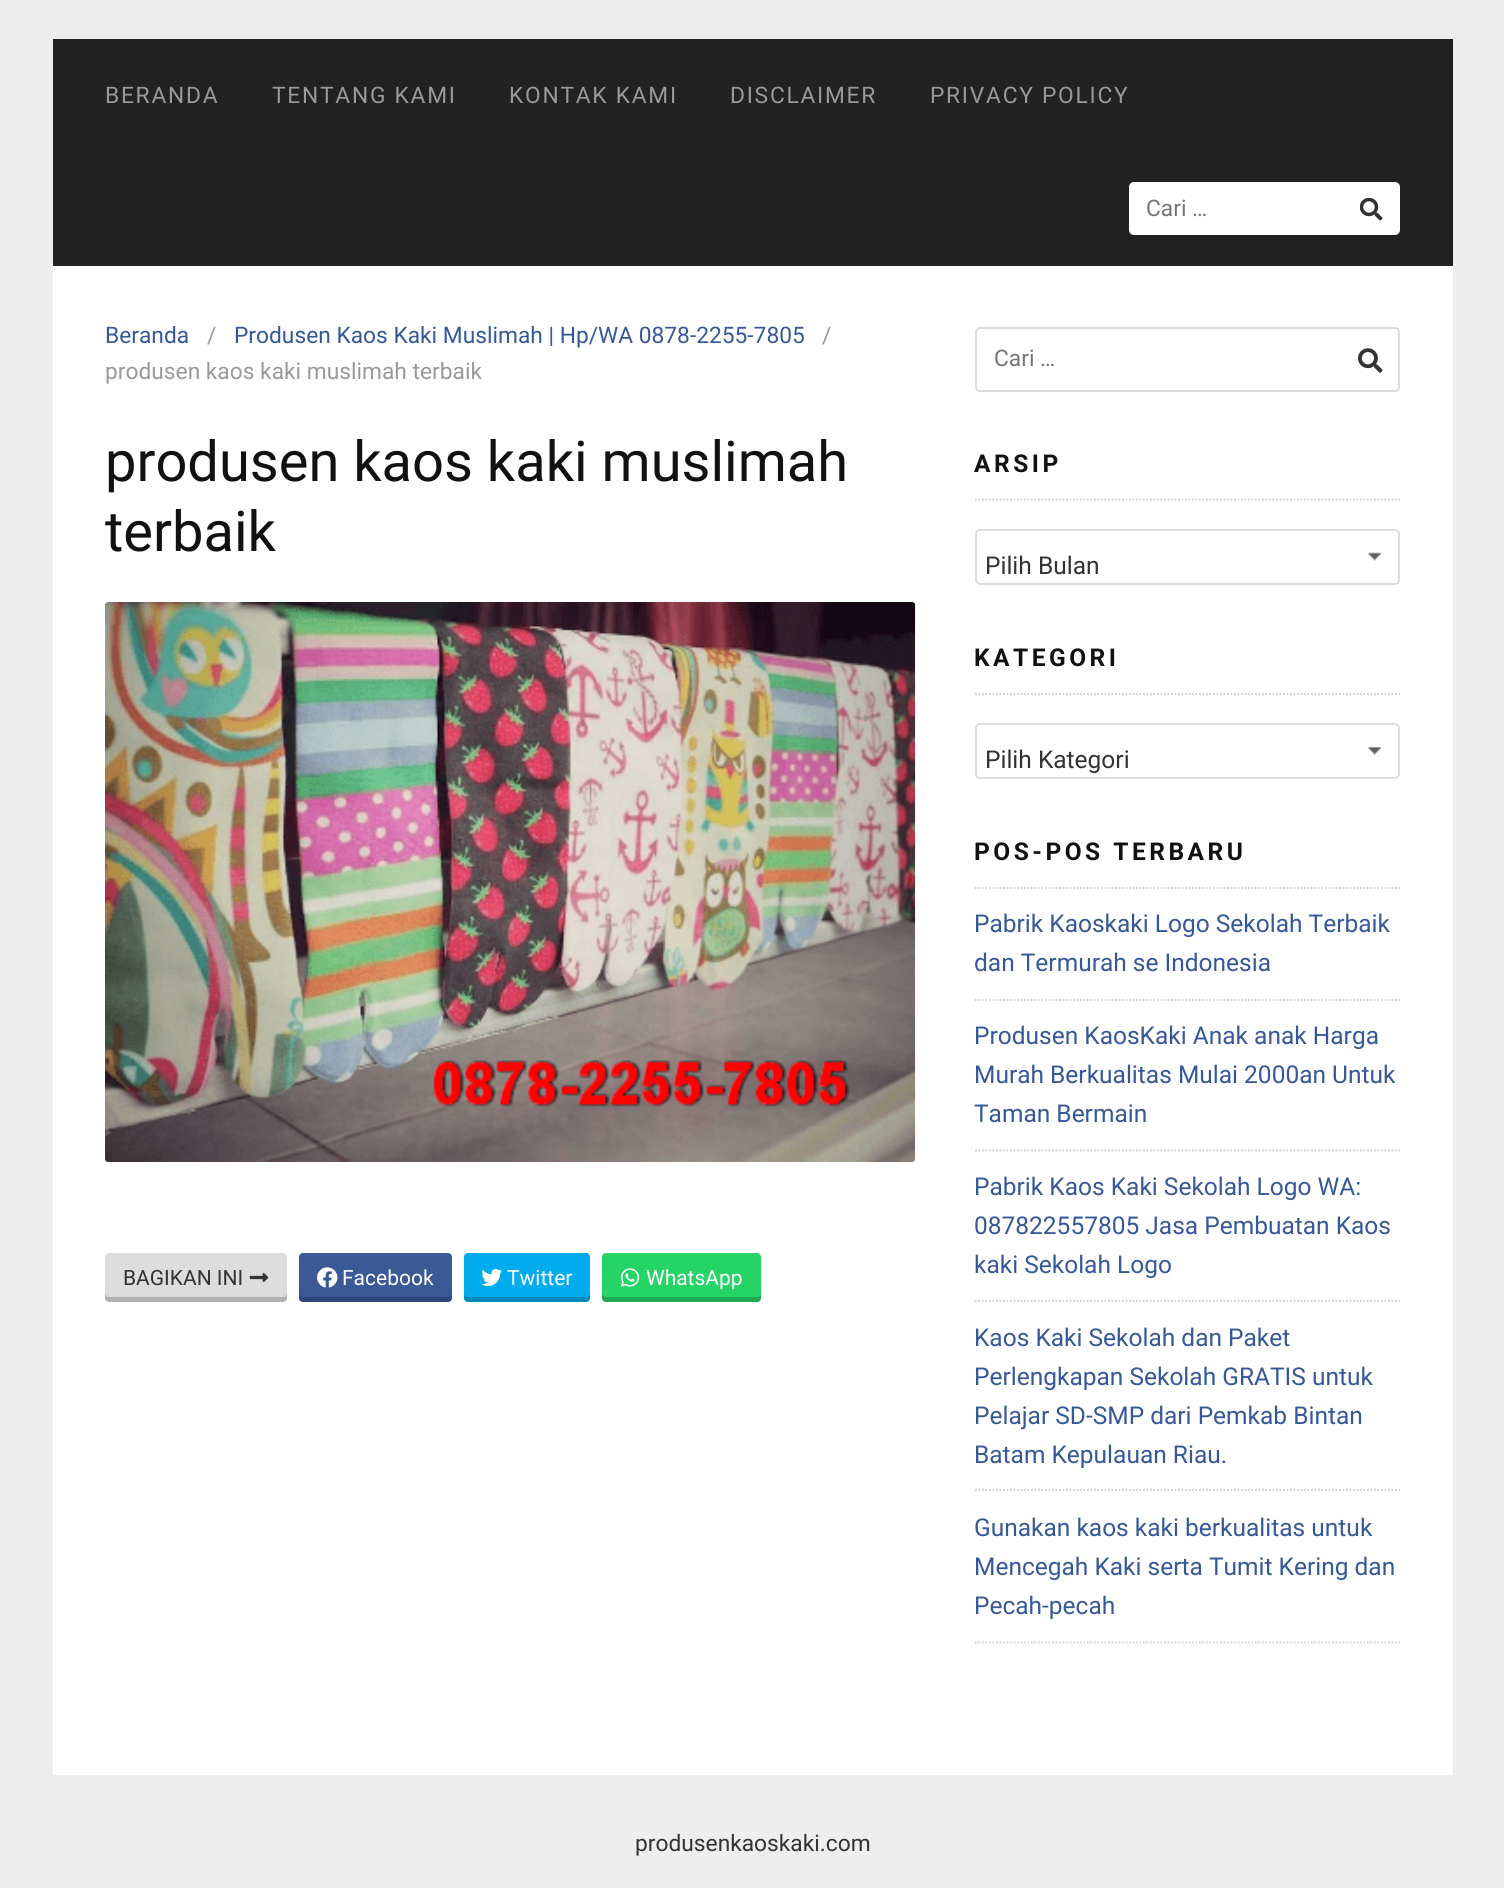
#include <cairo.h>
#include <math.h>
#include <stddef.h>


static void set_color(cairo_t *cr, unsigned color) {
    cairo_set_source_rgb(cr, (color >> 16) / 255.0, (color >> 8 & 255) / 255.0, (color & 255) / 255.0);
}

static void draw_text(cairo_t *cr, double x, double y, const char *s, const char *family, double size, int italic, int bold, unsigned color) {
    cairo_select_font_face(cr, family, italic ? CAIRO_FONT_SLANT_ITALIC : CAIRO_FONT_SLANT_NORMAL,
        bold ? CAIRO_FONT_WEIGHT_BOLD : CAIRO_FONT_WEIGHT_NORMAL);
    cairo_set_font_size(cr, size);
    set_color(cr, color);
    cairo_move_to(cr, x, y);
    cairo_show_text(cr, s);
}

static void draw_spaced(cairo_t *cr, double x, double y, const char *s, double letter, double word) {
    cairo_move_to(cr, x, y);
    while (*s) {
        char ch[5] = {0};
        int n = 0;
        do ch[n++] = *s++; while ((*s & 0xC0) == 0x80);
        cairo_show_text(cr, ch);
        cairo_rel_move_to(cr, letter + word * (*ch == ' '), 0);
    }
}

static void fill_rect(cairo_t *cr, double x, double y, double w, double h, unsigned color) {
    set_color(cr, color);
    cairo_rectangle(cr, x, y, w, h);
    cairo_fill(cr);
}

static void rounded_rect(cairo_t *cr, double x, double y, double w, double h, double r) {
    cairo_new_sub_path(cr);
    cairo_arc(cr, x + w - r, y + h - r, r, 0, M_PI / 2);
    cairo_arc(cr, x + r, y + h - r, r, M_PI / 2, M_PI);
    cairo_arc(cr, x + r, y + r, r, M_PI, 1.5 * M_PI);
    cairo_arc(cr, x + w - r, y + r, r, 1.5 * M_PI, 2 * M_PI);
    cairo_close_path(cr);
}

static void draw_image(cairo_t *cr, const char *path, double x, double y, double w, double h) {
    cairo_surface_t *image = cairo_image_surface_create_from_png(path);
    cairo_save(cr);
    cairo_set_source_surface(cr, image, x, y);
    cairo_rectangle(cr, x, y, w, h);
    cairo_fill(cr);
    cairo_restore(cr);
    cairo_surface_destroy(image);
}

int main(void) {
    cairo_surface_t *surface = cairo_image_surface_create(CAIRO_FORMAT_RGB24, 1504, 1888);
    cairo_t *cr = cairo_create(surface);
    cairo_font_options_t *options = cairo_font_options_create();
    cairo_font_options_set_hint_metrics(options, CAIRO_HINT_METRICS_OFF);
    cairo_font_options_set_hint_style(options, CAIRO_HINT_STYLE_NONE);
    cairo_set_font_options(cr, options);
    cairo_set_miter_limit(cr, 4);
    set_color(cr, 0xEEEEEE);
    cairo_paint(cr);
    fill_rect(cr, 53, 266, 1400, 1509, 0xFFFFFF);
    fill_rect(cr, 53, 39, 1400, 227, 0x222222);
    cairo_select_font_face(cr, "Roboto", CAIRO_FONT_SLANT_NORMAL, CAIRO_FONT_WEIGHT_NORMAL);
    cairo_set_font_size(cr, 22.75);
    set_color(cr, 0x999999);
    draw_spaced(cr, 105, 103, "BERANDA", 1.75, 0);
    draw_spaced(cr, 272, 103, "TENTANG KAMI", 1.75, 0);
    draw_spaced(cr, 509, 103, "KONTAK KAMI", 1.75, 0);
    draw_spaced(cr, 730, 103, "DISCLAIMER", 1.75, 0);
    draw_spaced(cr, 930, 103, "PRIVACY POLICY", 1.75, 0);
    set_color(cr, 0xFFFFFF);
    rounded_rect(cr, 1129, 182, 271, 53, 5);
    cairo_fill(cr);
    draw_text(cr, 1146, 216, "Cari …", "Roboto", 22.75, 0, 0, 0x757575);
    draw_image(cr, "assets/img1.png", 1360, 198, 23, 23);
    draw_text(cr, 105, 343, "Beranda", "Roboto", 22.75, 0, 0, 0x365899);
    draw_text(cr, 207, 343, "/", "Roboto", 22.75, 0, 0, 0x999999);
    draw_text(cr, 234, 343, "Produsen Kaos Kaki Muslimah | Hp/WA 0878-2255-7805", "Roboto", 22.75, 0, 0, 0x365899);
    draw_text(cr, 822, 343, "/", "Roboto", 22.75, 0, 0, 0x999999);
    draw_text(cr, 105, 379, "produsen kaos kaki muslimah terbaik", "Roboto", 22.75, 0, 0, 0x999999);
    draw_text(cr, 105, 481, "produsen kaos kaki muslimah", "Roboto", 56, 0, 0, 0x111111);
    draw_text(cr, 105, 551, "terbaik", "Roboto", 56, 0, 0, 0x111111);
    draw_image(cr, "assets/img2.png", 105, 602, 811, 560);
    set_color(cr, 0xDDDDDD);
    rounded_rect(cr, 105, 1253, 182, 49, 4);
    cairo_fill(cr);
    cairo_set_source_rgba(cr, 0, 0, 0, 0.2);
    cairo_new_path(cr);
    cairo_move_to(cr, 105, 1293);
    cairo_line_to(cr, 105, 1298);
    cairo_curve_to(cr, 105, 1300, 107, 1302, 109, 1302);
    cairo_line_to(cr, 283, 1302);
    cairo_curve_to(cr, 285, 1302, 287, 1300, 287, 1298);
    cairo_line_to(cr, 287, 1293);
    cairo_curve_to(cr, 287, 1295, 285, 1297, 284, 1297);
    cairo_line_to(cr, 108, 1297);
    cairo_curve_to(cr, 107, 1297, 105, 1295, 105, 1293);
    cairo_close_path(cr);
    cairo_fill(cr);
    draw_text(cr, 123, 1285, "BAGIKAN INI", "Roboto", 21, 0, 0, 0x333333);
    draw_image(cr, "assets/img3.png", 249, 1273, 20, 9);
    set_color(cr, 0x3B5997);
    rounded_rect(cr, 299, 1253, 153, 49, 4);
    cairo_fill(cr);
    cairo_set_source_rgba(cr, 0, 0, 0, 0.2);
    cairo_new_path(cr);
    cairo_move_to(cr, 299, 1293);
    cairo_line_to(cr, 299, 1298);
    cairo_curve_to(cr, 299, 1300, 301, 1302, 303, 1302);
    cairo_line_to(cr, 448, 1302);
    cairo_curve_to(cr, 450, 1302, 452, 1300, 452, 1298);
    cairo_line_to(cr, 452, 1293);
    cairo_curve_to(cr, 452, 1295, 450, 1297, 448, 1297);
    cairo_line_to(cr, 303, 1297);
    cairo_curve_to(cr, 301, 1297, 299, 1295, 299, 1293);
    cairo_close_path(cr);
    cairo_fill(cr);
    draw_image(cr, "assets/img4.png", 317, 1267, 21, 21);
    draw_text(cr, 342, 1285, "Facebook", "Roboto", 21, 0, 0, 0xFFFFFF);
    set_color(cr, 0x00ACED);
    rounded_rect(cr, 464, 1253, 126, 49, 4);
    cairo_fill(cr);
    cairo_set_source_rgba(cr, 0, 0, 0, 0.2);
    cairo_new_path(cr);
    cairo_move_to(cr, 464, 1293);
    cairo_line_to(cr, 464, 1298);
    cairo_curve_to(cr, 464, 1300, 466, 1302, 468, 1302);
    cairo_line_to(cr, 586, 1302);
    cairo_curve_to(cr, 588, 1302, 590, 1300, 590, 1298);
    cairo_line_to(cr, 590, 1293);
    cairo_curve_to(cr, 590, 1295, 588, 1297, 586, 1297);
    cairo_line_to(cr, 467, 1297);
    cairo_curve_to(cr, 465, 1297, 464, 1295, 464, 1293);
    cairo_close_path(cr);
    cairo_fill(cr);
    draw_image(cr, "assets/img5.png", 481, 1269, 21, 17);
    draw_text(cr, 507, 1285, "Twitter", "Roboto", 21, 0, 0, 0xFFFFFF);
    set_color(cr, 0x25D366);
    rounded_rect(cr, 602, 1253, 159, 49, 4);
    cairo_fill(cr);
    cairo_set_source_rgba(cr, 0, 0, 0, 0.2);
    cairo_new_path(cr);
    cairo_move_to(cr, 602, 1293);
    cairo_line_to(cr, 602, 1298);
    cairo_curve_to(cr, 602, 1300, 604, 1302, 606, 1302);
    cairo_line_to(cr, 757, 1302);
    cairo_curve_to(cr, 759, 1302, 761, 1300, 761, 1298);
    cairo_line_to(cr, 761, 1293);
    cairo_curve_to(cr, 761, 1295, 760, 1297, 758, 1297);
    cairo_line_to(cr, 606, 1297);
    cairo_curve_to(cr, 604, 1297, 602, 1295, 602, 1293);
    cairo_close_path(cr);
    cairo_fill(cr);
    draw_image(cr, "assets/img6.png", 620, 1268, 20, 19);
    draw_text(cr, 646, 1285, "WhatsApp", "Roboto", 21, 0, 0, 0xFFFFFF);
    rounded_rect(cr, 976, 328, 423, 63, 4);
    set_color(cr, 0xDDDDDD);
    cairo_stroke(cr);
    draw_text(cr, 994, 366, "Cari …", "Roboto", 22.75, 0, 0, 0x757575);
    draw_image(cr, "assets/img7.png", 1358, 348, 25, 25);
    cairo_new_path(cr);
    cairo_move_to(cr, 975, 499.5);
    cairo_line_to(cr, 1400, 499.5);
    set_color(cr, 0xCCCCCC);
    cairo_set_line_width(cr, 1.8);
    cairo_set_dash(cr, (double[]){1.75, 1.75}, 2, 0);
    cairo_stroke(cr);
    cairo_select_font_face(cr, "Roboto", CAIRO_FONT_SLANT_NORMAL, CAIRO_FONT_WEIGHT_BOLD);
    cairo_set_font_size(cr, 24.5);
    set_color(cr, 0x111111);
    draw_spaced(cr, 974, 472, "ARSIP", 3.5, 0);
    draw_image(cr, "assets/img8.png", 1368, 552, 14, 9);
    rounded_rect(cr, 976, 530, 423, 54, 4);
    set_color(cr, 0xDDDDDD);
    cairo_set_line_width(cr, 2);
    cairo_set_dash(cr, NULL, 0, 0);
    cairo_stroke(cr);
    draw_text(cr, 985, 574, "Pilih Bulan", "Roboto", 24.5, 0, 0, 0x333333);
    cairo_new_path(cr);
    cairo_move_to(cr, 975, 694);
    cairo_line_to(cr, 1400, 694);
    set_color(cr, 0xCCCCCC);
    cairo_set_line_width(cr, 1.8);
    cairo_set_dash(cr, (double[]){1.75, 1.75}, 2, 0);
    cairo_stroke(cr);
    cairo_select_font_face(cr, "Roboto", CAIRO_FONT_SLANT_NORMAL, CAIRO_FONT_WEIGHT_BOLD);
    set_color(cr, 0x111111);
    draw_spaced(cr, 974, 666, "KATEGORI", 3.5, 0);
    draw_image(cr, "assets/img9.png", 1368, 746, 14, 9);
    rounded_rect(cr, 976, 724, 423, 54, 4);
    set_color(cr, 0xDDDDDD);
    cairo_set_line_width(cr, 2);
    cairo_set_dash(cr, NULL, 0, 0);
    cairo_stroke(cr);
    draw_text(cr, 985, 768, "Pilih Kategori", "Roboto", 24.5, 0, 0, 0x333333);
    cairo_new_path(cr);
    cairo_move_to(cr, 975, 888);
    cairo_line_to(cr, 1400, 888);
    set_color(cr, 0xCCCCCC);
    cairo_set_line_width(cr, 1.8);
    cairo_set_dash(cr, (double[]){1.75, 1.75}, 2, 0);
    cairo_stroke(cr);
    cairo_select_font_face(cr, "Roboto", CAIRO_FONT_SLANT_NORMAL, CAIRO_FONT_WEIGHT_BOLD);
    set_color(cr, 0x111111);
    draw_spaced(cr, 974, 860, "POS-POS TERBARU", 3.5, 0);
    cairo_new_path(cr);
    cairo_move_to(cr, 975, 1000);
    cairo_line_to(cr, 1400, 1000);
    set_color(cr, 0xCCCCCC);
    cairo_stroke(cr);
    draw_text(cr, 974, 932, "Pabrik Kaoskaki Logo Sekolah Terbaik", "Roboto", 24.5, 0, 0, 0x365899);
    draw_text(cr, 974, 971, "dan Termurah se Indonesia", "Roboto", 24.5, 0, 0, 0x365899);
    cairo_new_path(cr);
    cairo_move_to(cr, 975, 1150.5);
    cairo_line_to(cr, 1400, 1150.5);
    set_color(cr, 0xCCCCCC);
    cairo_stroke(cr);
    draw_text(cr, 974, 1044, "Produsen KaosKaki Anak anak Harga", "Roboto", 24.5, 0, 0, 0x365899);
    draw_text(cr, 974, 1083, "Murah Berkualitas Mulai 2000an Untuk", "Roboto", 24.5, 0, 0, 0x365899);
    draw_text(cr, 974, 1122, "Taman Bermain", "Roboto", 24.5, 0, 0, 0x365899);
    cairo_new_path(cr);
    cairo_move_to(cr, 975, 1301);
    cairo_line_to(cr, 1400, 1301);
    set_color(cr, 0xCCCCCC);
    cairo_stroke(cr);
    draw_text(cr, 974, 1195, "Pabrik Kaos Kaki Sekolah Logo WA:", "Roboto", 24.5, 0, 0, 0x365899);
    draw_text(cr, 974, 1234, "087822557805 Jasa Pembuatan Kaos", "Roboto", 24.5, 0, 0, 0x365899);
    draw_text(cr, 974, 1273, "kaki Sekolah Logo", "Roboto", 24.5, 0, 0, 0x365899);
    cairo_new_path(cr);
    cairo_move_to(cr, 975, 1490);
    cairo_line_to(cr, 1400, 1490);
    set_color(cr, 0xCCCCCC);
    cairo_stroke(cr);
    draw_text(cr, 974, 1346, "Kaos Kaki Sekolah dan Paket", "Roboto", 24.5, 0, 0, 0x365899);
    draw_text(cr, 974, 1385, "Perlengkapan Sekolah GRATIS untuk", "Roboto", 24.5, 0, 0, 0x365899);
    draw_text(cr, 974, 1424, "Pelajar SD-SMP dari Pemkab Bintan", "Roboto", 24.5, 0, 0, 0x365899);
    draw_text(cr, 974, 1463, "Batam Kepulauan Riau.", "Roboto", 24.5, 0, 0, 0x365899);
    cairo_new_path(cr);
    cairo_move_to(cr, 975, 1642.5);
    cairo_line_to(cr, 1400, 1642.5);
    set_color(cr, 0xCCCCCC);
    cairo_stroke(cr);
    draw_text(cr, 974, 1536, "Gunakan kaos kaki berkualitas untuk", "Roboto", 24.5, 0, 0, 0x365899);
    draw_text(cr, 974, 1575, "Mencegah Kaki serta Tumit Kering dan", "Roboto", 24.5, 0, 0, 0x365899);
    draw_text(cr, 974, 1614, "Pecah-pecah", "Roboto", 24.5, 0, 0, 0x365899);
    draw_text(cr, 635, 1851, "produsenkaoskaki.com", "Roboto", 22.75, 0, 0, 0x333333);
    cairo_surface_write_to_png(surface, "output.png");
    cairo_font_options_destroy(options);
    cairo_destroy(cr);
    cairo_surface_destroy(surface);
    return 0;
}
